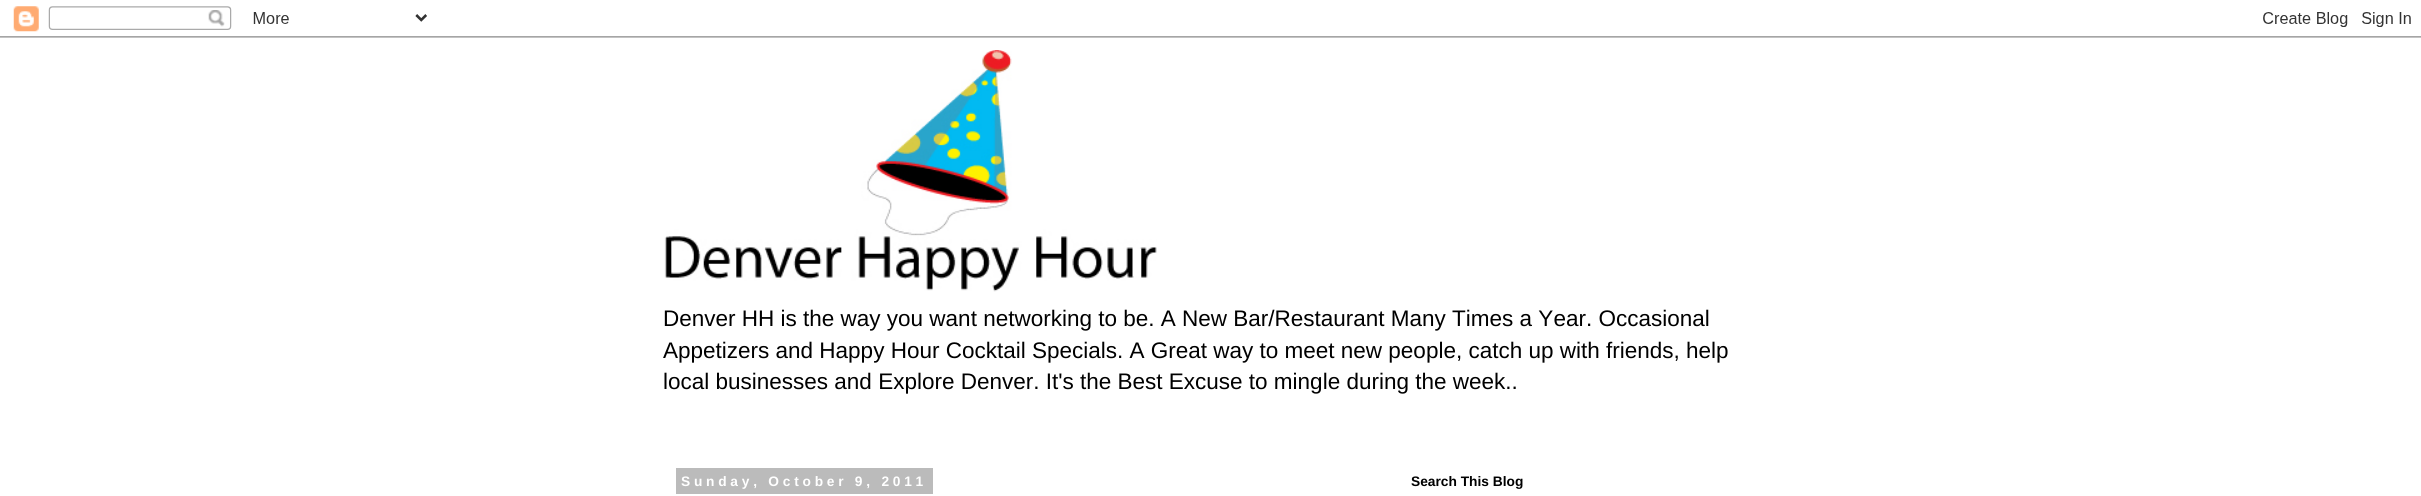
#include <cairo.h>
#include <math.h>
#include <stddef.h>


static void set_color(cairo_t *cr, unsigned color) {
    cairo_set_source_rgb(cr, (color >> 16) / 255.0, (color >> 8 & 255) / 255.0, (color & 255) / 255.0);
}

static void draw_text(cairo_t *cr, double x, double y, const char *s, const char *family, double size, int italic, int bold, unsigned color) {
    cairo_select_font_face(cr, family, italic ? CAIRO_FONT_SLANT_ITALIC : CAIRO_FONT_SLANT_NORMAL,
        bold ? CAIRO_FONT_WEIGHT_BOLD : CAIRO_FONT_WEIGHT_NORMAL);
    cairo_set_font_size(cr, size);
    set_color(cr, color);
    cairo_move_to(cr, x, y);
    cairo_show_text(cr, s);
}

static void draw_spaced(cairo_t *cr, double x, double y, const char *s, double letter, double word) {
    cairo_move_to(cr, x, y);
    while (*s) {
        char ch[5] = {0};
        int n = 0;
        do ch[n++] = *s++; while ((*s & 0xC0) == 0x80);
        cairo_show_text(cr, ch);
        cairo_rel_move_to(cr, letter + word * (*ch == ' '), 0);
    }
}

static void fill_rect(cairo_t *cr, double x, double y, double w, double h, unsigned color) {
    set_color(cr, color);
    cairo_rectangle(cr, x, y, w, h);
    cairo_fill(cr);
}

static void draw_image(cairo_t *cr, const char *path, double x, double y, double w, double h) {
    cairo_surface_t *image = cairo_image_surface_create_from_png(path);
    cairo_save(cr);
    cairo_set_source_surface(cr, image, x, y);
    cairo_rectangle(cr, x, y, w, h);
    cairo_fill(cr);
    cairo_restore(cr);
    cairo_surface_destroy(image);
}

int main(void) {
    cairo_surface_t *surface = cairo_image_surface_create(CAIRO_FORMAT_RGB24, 2421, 496);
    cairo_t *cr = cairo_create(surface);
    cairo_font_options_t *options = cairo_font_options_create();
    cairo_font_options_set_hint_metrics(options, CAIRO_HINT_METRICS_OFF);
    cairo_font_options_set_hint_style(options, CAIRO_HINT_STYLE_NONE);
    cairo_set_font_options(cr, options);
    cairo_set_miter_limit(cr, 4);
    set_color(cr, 0xFFFFFF);
    cairo_paint(cr);
    draw_image(cr, "assets/img1.png", 0, 6, 2421, 32);
    draw_image(cr, "assets/img2.png", 664, 50, 493, 242);
    draw_text(cr, 663, 326, "Denver HH is the way you want networking to be. A New Bar/Restaurant Many Times a Year. Occasional", "Liberation Sans", 22.5, 0, 0, 0x000000);
    draw_text(cr, 663, 358, "Appetizers and Happy Hour Cocktail Specials. A Great way to meet new people, catch up with friends, help", "Liberation Sans", 22.5, 0, 0, 0x000000);
    draw_text(cr, 663, 389, "local businesses and Explore Denver. It's the Best Excuse to mingle during the week..", "Liberation Sans", 22.5, 0, 0, 0x000000);
    fill_rect(cr, 676, 468, 257, 26, 0xBBBBBB);
    cairo_select_font_face(cr, "Liberation Sans", CAIRO_FONT_SLANT_NORMAL, CAIRO_FONT_WEIGHT_BOLD);
    cairo_set_font_size(cr, 13.75);
    set_color(cr, 0xFFFFFF);
    draw_spaced(cr, 681, 486, "Sunday, October 9, 2011", 3.75, 0);
    draw_text(cr, 1411, 486, "Search This Blog", "Liberation Sans", 13.75, 0, 1, 0x000000);
    cairo_surface_write_to_png(surface, "output.png");
    cairo_font_options_destroy(options);
    cairo_destroy(cr);
    cairo_surface_destroy(surface);
    return 0;
}
